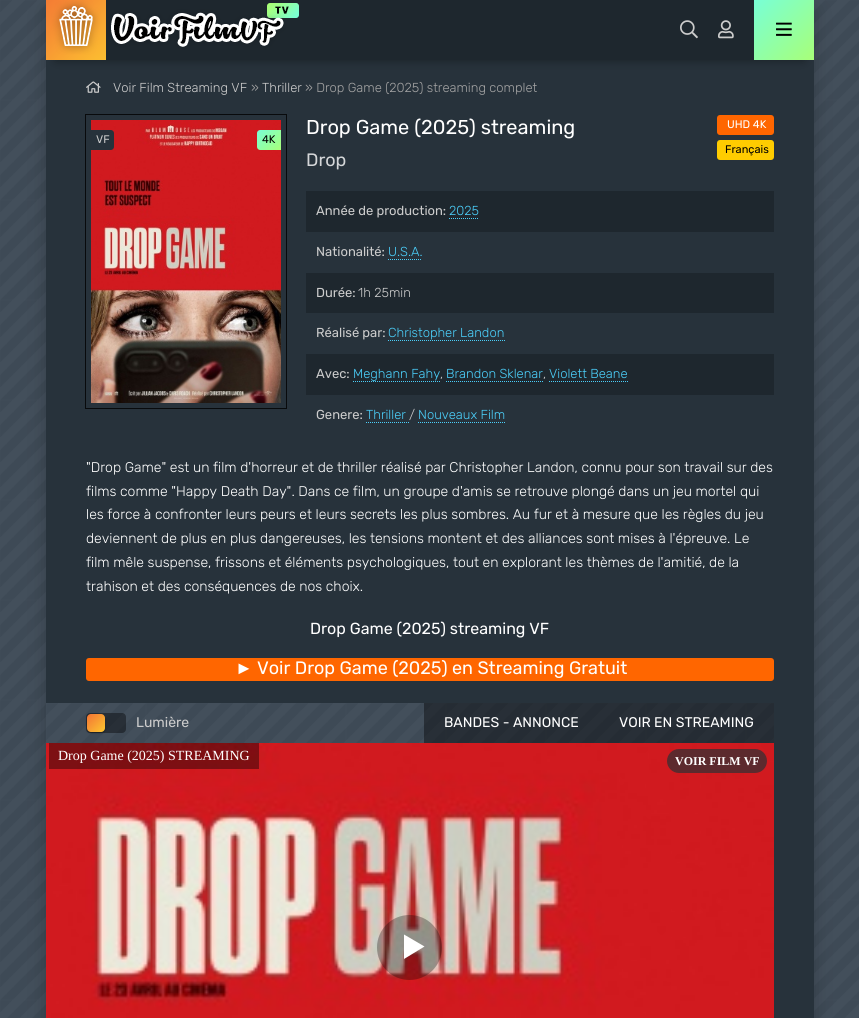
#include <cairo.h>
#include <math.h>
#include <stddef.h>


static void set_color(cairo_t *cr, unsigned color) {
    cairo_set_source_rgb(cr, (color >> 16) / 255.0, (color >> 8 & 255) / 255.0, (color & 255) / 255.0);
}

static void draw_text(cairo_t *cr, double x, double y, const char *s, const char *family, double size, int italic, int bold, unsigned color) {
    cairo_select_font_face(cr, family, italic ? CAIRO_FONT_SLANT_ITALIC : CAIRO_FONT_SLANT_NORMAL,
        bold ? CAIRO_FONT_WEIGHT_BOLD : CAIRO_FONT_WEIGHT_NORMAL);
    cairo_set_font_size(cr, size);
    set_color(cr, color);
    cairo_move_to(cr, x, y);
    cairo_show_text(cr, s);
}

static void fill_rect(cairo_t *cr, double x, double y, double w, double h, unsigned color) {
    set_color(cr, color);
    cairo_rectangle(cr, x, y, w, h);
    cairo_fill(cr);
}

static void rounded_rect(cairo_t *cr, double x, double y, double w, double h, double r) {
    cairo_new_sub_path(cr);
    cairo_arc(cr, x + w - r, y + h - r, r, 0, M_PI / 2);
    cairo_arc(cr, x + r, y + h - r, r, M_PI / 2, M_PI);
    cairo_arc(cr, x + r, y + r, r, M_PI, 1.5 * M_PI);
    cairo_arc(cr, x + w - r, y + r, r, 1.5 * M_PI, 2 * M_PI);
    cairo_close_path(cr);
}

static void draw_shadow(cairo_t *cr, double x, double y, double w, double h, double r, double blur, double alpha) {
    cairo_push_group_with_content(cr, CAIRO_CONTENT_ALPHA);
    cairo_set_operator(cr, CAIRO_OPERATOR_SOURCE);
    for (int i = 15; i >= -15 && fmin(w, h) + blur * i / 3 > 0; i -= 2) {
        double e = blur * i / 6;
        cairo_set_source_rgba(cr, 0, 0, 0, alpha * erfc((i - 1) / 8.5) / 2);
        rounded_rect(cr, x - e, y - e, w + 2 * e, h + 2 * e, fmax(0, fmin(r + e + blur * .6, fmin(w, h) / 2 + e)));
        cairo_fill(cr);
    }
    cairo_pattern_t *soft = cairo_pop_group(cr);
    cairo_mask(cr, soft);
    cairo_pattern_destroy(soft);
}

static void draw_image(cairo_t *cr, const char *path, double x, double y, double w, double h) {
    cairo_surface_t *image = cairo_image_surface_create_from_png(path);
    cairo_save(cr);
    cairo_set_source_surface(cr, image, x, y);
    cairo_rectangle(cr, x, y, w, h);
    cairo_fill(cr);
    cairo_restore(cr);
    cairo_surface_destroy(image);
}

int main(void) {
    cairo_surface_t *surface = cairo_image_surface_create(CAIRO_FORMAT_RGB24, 859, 1018);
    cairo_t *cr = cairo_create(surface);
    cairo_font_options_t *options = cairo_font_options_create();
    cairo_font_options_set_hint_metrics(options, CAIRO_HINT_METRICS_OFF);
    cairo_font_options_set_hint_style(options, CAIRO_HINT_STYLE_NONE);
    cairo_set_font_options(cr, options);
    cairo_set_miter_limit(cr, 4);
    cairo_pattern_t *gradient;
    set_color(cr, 0xFFFFFF);
    cairo_paint(cr);
    draw_image(cr, "assets/img1.png", 0, 0, 859, 1018);
    set_color(cr, 0x000000);
    draw_shadow(cr, 46, 10, 768, 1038, 0, 10, 0.2);
    fill_rect(cr, 46, 60, 768, 958, 0x27323B);
    set_color(cr, 0x000000);
    draw_shadow(cr, 56, 20, 748, 40, 0, 5, 0.4);
    fill_rect(cr, 106, 0, 648, 60, 0x1E272E);
    draw_image(cr, "assets/img2.png", 46, 0, 253, 60);
    draw_image(cr, "assets/img3.png", 680, 20, 18, 19);
    draw_image(cr, "assets/img4.png", 718, 20, 16, 19);
    gradient = cairo_pattern_create_linear(754, 0, 814, 60);
    cairo_pattern_add_color_stop_rgba(gradient, 0, 0.471, 1, 0.839, 1);
    cairo_pattern_add_color_stop_rgba(gradient, 1, 0.659, 1, 0.471, 1);
    cairo_set_source(cr, gradient);
    cairo_pattern_destroy(gradient);
    cairo_rectangle(cr, 754, 0, 60, 60);
    cairo_fill(cr);
    draw_image(cr, "assets/img5.png", 776, 22, 16, 14);
    draw_image(cr, "assets/img6.png", 86, 81, 15, 12);
    draw_text(cr, 113, 92, "Voir Film Streaming VF", "Rubik Light", 13, 0, 0, 0xCCCCCC);
    draw_text(cr, 251, 92, "»", "Rubik Light", 13, 0, 0, 0xA3A3A3);
    draw_text(cr, 262, 92, "Thriller", "Rubik Light", 13, 0, 0, 0xCCCCCC);
    draw_text(cr, 305, 92, "» Drop Game (2025) streaming complet", "Rubik Light", 13, 0, 0, 0xA3A3A3);
    draw_text(cr, 306, 134, "Drop Game (2025) streaming", "Rubik", 20, 0, 0, 0xFFFFFF);
    set_color(cr, 0xFF6600);
    rounded_rect(cr, 718, 116, 55, 18, 2);
    cairo_fill_preserve(cr);
    cairo_stroke(cr);
    draw_text(cr, 727, 128, "UHD 4K", "Rubik", 11, 0, 0, 0xFFFFFF);
    set_color(cr, 0xFFCC00);
    rounded_rect(cr, 718, 141, 55, 18, 2);
    cairo_fill_preserve(cr);
    cairo_stroke(cr);
    draw_text(cr, 725, 153, "Français", "Rubik", 11, 0, 0, 0x000000);
    draw_text(cr, 306, 166, "Drop", "Rubik", 18, 0, 0, 0xD4D6D8);
    fill_rect(cr, 306, 191, 468, 41, 0x1E272E);
    draw_text(cr, 316, 215, "Année de production:", "Rubik", 13, 0, 0, 0xCCCCCC);
    draw_text(cr, 449, 215, "2025", "Rubik Light", 13, 0, 0, 0x4BCFFA);
    cairo_new_path(cr);
    cairo_move_to(cr, 449, 218.5);
    cairo_line_to(cr, 479, 218.5);
    cairo_set_line_width(cr, 1);
    cairo_set_dash(cr, (double[]){1, 1}, 2, 0);
    cairo_stroke(cr);
    draw_text(cr, 316, 256, "Nationalité:", "Rubik", 13, 0, 0, 0xCCCCCC);
    draw_text(cr, 388, 256, "U.S.A.", "Rubik Light", 13, 0, 0, 0x4BCFFA);
    cairo_new_path(cr);
    cairo_move_to(cr, 388, 259.5);
    cairo_line_to(cr, 422, 259.5);
    cairo_stroke(cr);
    fill_rect(cr, 306, 273, 468, 40, 0x1E272E);
    draw_text(cr, 316, 297, "Durée:", "Rubik", 13, 0, 0, 0xCCCCCC);
    draw_text(cr, 358, 297, "1h 25min", "Rubik Light", 13, 0, 0, 0xCCCCCC);
    draw_text(cr, 316, 337, "Réalisé par:", "Rubik", 13, 0, 0, 0xCCCCCC);
    draw_text(cr, 388, 337, "Christopher Landon", "Rubik Light", 13, 0, 0, 0x4BCFFA);
    cairo_new_path(cr);
    cairo_move_to(cr, 388, 340.5);
    cairo_line_to(cr, 505, 340.5);
    cairo_stroke(cr);
    fill_rect(cr, 306, 354, 468, 41, 0x1E272E);
    draw_text(cr, 316, 378, "Avec:", "Rubik", 13, 0, 0, 0xCCCCCC);
    draw_text(cr, 353, 378, "Meghann Fahy", "Rubik Light", 13, 0, 0, 0x4BCFFA);
    cairo_new_path(cr);
    cairo_move_to(cr, 353, 381.5);
    cairo_line_to(cr, 440, 381.5);
    cairo_stroke(cr);
    draw_text(cr, 440, 378, ",", "Rubik Light", 13, 0, 0, 0xCCCCCC);
    draw_text(cr, 446, 378, "Brandon Sklenar", "Rubik Light", 13, 0, 0, 0x4BCFFA);
    cairo_new_path(cr);
    cairo_move_to(cr, 446, 381.5);
    cairo_line_to(cr, 543, 381.5);
    cairo_stroke(cr);
    draw_text(cr, 543, 378, ",", "Rubik Light", 13, 0, 0, 0xCCCCCC);
    draw_text(cr, 549, 378, "Violett Beane", "Rubik Light", 13, 0, 0, 0x4BCFFA);
    cairo_new_path(cr);
    cairo_move_to(cr, 549, 381.5);
    cairo_line_to(cr, 628, 381.5);
    cairo_stroke(cr);
    draw_text(cr, 316, 419, "Genere:", "Rubik", 13, 0, 0, 0xCCCCCC);
    draw_text(cr, 366, 419, "Thriller", "Rubik Light", 13, 0, 0, 0x4BCFFA);
    cairo_new_path(cr);
    cairo_move_to(cr, 366, 422.5);
    cairo_line_to(cr, 409, 422.5);
    cairo_stroke(cr);
    draw_text(cr, 409, 419, "/", "Rubik Light", 13, 0, 0, 0xCCCCCC);
    draw_text(cr, 418, 419, "Nouveaux Film", "Rubik Light", 13, 0, 0, 0x4BCFFA);
    cairo_new_path(cr);
    cairo_move_to(cr, 418, 422.5);
    cairo_line_to(cr, 505, 422.5);
    cairo_stroke(cr);
    draw_text(cr, 86, 472, "\"Drop Game\" est un film d'horreur et de thriller réalisé par Christopher Landon, connu pour son travail sur des", "Rubik Light", 14, 0, 0, 0xFFFFFF);
    draw_text(cr, 86, 496, "films comme \"Happy Death Day\". Dans ce film, un groupe d'amis se retrouve plongé dans un jeu mortel qui", "Rubik Light", 14, 0, 0, 0xFFFFFF);
    draw_text(cr, 86, 519, "les force à confronter leurs peurs et leurs secrets les plus sombres. Au fur et à mesure que les règles du jeu", "Rubik Light", 14, 0, 0, 0xFFFFFF);
    draw_text(cr, 86, 543, "deviennent de plus en plus dangereuses, les tensions montent et des alliances sont mises à l'épreuve. Le", "Rubik Light", 14, 0, 0, 0xFFFFFF);
    draw_text(cr, 86, 567, "film mêle suspense, frissons et éléments psychologiques, tout en explorant les thèmes de l'amitié, de la", "Rubik Light", 14, 0, 0, 0xFFFFFF);
    draw_text(cr, 86, 591, "trahison et des conséquences de nos choix.", "Rubik Light", 14, 0, 0, 0xFFFFFF);
    cairo_rectangle(cr, 85.5, 114.5, 201, 294);
    set_color(cr, 0x080A0C);
    cairo_set_dash(cr, NULL, 0, 0);
    cairo_stroke(cr);
    draw_image(cr, "assets/img7.png", 91, 120, 190, 283);
    set_color(cr, 0x27323B);
    cairo_new_path(cr);
    cairo_move_to(cr, 91, 130);
    cairo_line_to(cr, 111, 130);
    cairo_curve_to(cr, 112.5, 130, 114, 131.5, 114, 133);
    cairo_line_to(cr, 114, 147);
    cairo_curve_to(cr, 114, 148.5, 112.5, 150, 111, 150);
    cairo_line_to(cr, 91, 150);
    cairo_close_path(cr);
    cairo_fill(cr);
    draw_text(cr, 96, 143, "VF", "Rubik", 11, 0, 0, 0xCCCCCC);
    gradient = cairo_pattern_create_linear(258, 129, 280, 151);
    cairo_pattern_add_color_stop_rgba(gradient, 0, 0.471, 1, 0.839, 1);
    cairo_pattern_add_color_stop_rgba(gradient, 1, 0.659, 1, 0.471, 1);
    cairo_set_source(cr, gradient);
    cairo_pattern_destroy(gradient);
    cairo_new_path(cr);
    cairo_move_to(cr, 260, 130);
    cairo_line_to(cr, 281, 130);
    cairo_line_to(cr, 281, 150);
    cairo_line_to(cr, 260, 150);
    cairo_curve_to(cr, 258.5, 150, 257, 148.5, 257, 147);
    cairo_line_to(cr, 257, 133);
    cairo_curve_to(cr, 257, 131.5, 258.5, 130, 260, 130);
    cairo_close_path(cr);
    cairo_fill(cr);
    draw_text(cr, 262, 143, "4K", "Rubik", 11, 0, 0, 0x000000);
    draw_text(cr, 310, 634, "Drop Game (2025) streaming VF", "Rubik", 16, 0, 0, 0xFFFFFF);
    set_color(cr, 0xFF6600);
    rounded_rect(cr, 87, 659, 686, 21, 2);
    cairo_fill_preserve(cr);
    cairo_set_line_width(cr, 2);
    cairo_stroke(cr);
    draw_text(cr, 235, 674, "►", "Liberation Sans", 18, 0, 0, 0xFFFFFF);
    draw_text(cr, 257, 674, "Voir Drop Game (2025) en Streaming Gratuit", "Rubik", 18, 0, 0, 0xFFFFFF);
    draw_image(cr, "assets/img8.png", 46, 703, 728, 40);
    cairo_set_source_rgba(cr, 0, 0, 0, 0.4);
    rounded_rect(cr, 86, 713, 40, 20, 4);
    cairo_fill(cr);
    set_color(cr, 0x000000);
    draw_shadow(cr, 87, 715, 18, 18, 4, 1, 0.3);
    gradient = cairo_pattern_create_linear(87, 714, 105, 732);
    cairo_pattern_add_color_stop_rgba(gradient, 0, 0.953, 0.451, 0.208, 1);
    cairo_pattern_add_color_stop_rgba(gradient, 1, 0.992, 0.784, 0.188, 1);
    cairo_set_source(cr, gradient);
    cairo_pattern_destroy(gradient);
    rounded_rect(cr, 87, 714, 18, 18, 4);
    cairo_fill(cr);
    draw_text(cr, 136, 727, "Lumière", "Rubik", 14, 0, 0, 0xCCCCCC);
    cairo_set_source_rgba(cr, 0, 0, 0, 0.4);
    cairo_rectangle(cr, 424, 703, 175, 40);
    cairo_fill(cr);
    draw_text(cr, 444, 727, "BANDES - ANNONCE", "Rubik", 14, 0, 0, 0xFFFFFF);
    cairo_set_source_rgba(cr, 0, 0, 0, 0.4);
    cairo_rectangle(cr, 599, 703, 175, 40);
    cairo_fill(cr);
    draw_text(cr, 619, 727, "VOIR EN STREAMING", "Rubik", 14, 0, 0, 0xFFFFFF);
    draw_image(cr, "assets/img9.png", 46, 743, 728, 275);
    cairo_set_source_rgba(cr, 0, 0, 0, 0.4);
    cairo_rectangle(cr, 49, 743, 210, 26);
    cairo_fill(cr);
    draw_text(cr, 58, 760, "Drop Game (2025) STREAMING", "Liberation Serif", 14, 0, 0, 0xFFFFFF);
    set_color(cr, 0x5C2A2E);
    rounded_rect(cr, 667, 749, 100, 24, 12);
    cairo_fill(cr);
    draw_text(cr, 675, 765, "VOIR FILM VF", "Liberation Serif", 12, 0, 1, 0xFFFFFF);
    cairo_set_source_rgba(cr, 0, 0, 0, 0.3);
    cairo_new_path(cr);
    cairo_arc(cr, 409.5, 947.5, 32.5, 0, 2 * M_PI);
    cairo_fill(cr);
    set_color(cr, 0xFFFFFF);
    cairo_new_path(cr);
    cairo_move_to(cr, 404, 934.5);
    cairo_line_to(cr, 404, 959);
    cairo_line_to(cr, 424.5, 946.5);
    cairo_line_to(cr, 404, 934.5);
    cairo_fill(cr);
    cairo_surface_write_to_png(surface, "output.png");
    cairo_font_options_destroy(options);
    cairo_destroy(cr);
    cairo_surface_destroy(surface);
    return 0;
}
